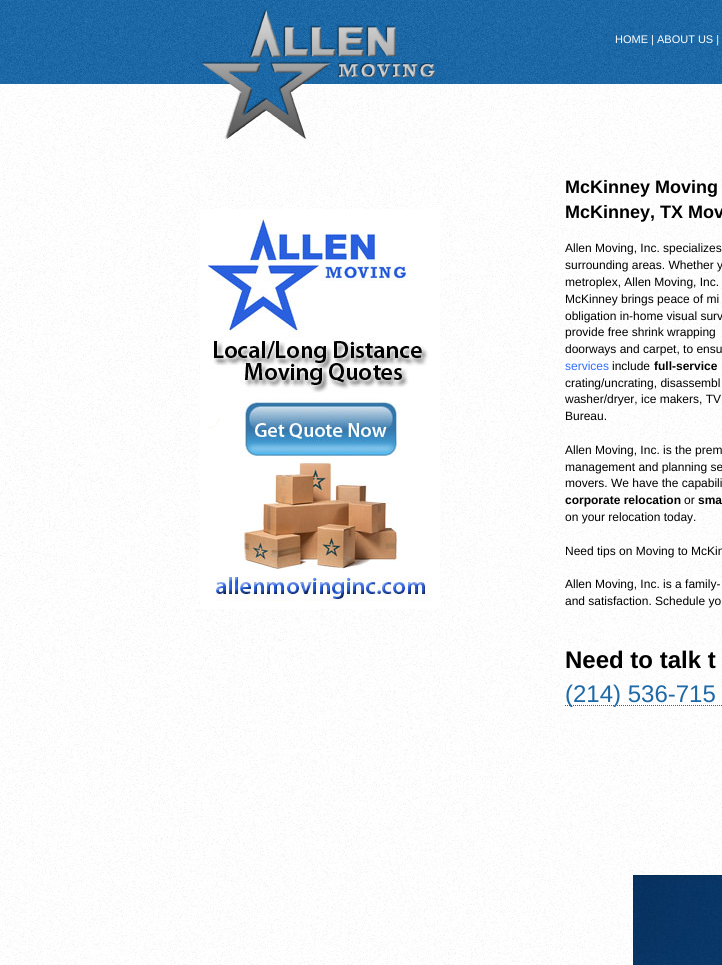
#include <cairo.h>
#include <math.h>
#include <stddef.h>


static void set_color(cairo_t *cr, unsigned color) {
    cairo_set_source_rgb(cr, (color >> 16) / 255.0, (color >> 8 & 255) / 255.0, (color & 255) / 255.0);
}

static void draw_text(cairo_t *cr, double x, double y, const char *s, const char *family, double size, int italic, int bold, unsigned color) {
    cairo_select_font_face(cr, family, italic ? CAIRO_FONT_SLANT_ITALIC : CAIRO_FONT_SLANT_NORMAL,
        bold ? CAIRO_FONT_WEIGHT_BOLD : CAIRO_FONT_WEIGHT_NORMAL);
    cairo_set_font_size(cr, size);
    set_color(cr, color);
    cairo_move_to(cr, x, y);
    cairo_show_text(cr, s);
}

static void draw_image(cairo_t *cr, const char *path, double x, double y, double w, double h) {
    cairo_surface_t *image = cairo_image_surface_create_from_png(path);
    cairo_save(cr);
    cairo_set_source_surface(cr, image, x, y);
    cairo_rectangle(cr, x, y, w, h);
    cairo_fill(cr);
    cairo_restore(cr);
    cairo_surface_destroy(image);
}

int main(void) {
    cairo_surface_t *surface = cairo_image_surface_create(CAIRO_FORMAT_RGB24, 722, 965);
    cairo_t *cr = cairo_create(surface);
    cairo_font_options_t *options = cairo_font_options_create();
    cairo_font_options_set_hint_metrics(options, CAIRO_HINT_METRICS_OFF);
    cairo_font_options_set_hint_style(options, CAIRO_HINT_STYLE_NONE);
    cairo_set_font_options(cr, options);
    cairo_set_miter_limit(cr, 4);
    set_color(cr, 0xFFFFFF);
    cairo_paint(cr);
    draw_image(cr, "assets/img1.png", 0, 84, 722, 881);
    draw_image(cr, "assets/img2.png", 0, 0, 722, 84);
    draw_image(cr, "assets/img3.png", 200, 9, 236, 132);
    draw_text(cr, 615, 43, "HOME | ABOUT US |", "Liberation Sans", 11, 0, 0, 0xFFFFFF);
    draw_image(cr, "assets/img4.png", 200, 175, 522, 790);
    draw_image(cr, "assets/img5.png", 200, 209, 240, 400);
    draw_text(cr, 565, 193, "McKinney Moving", "Liberation Sans", 18, 0, 1, 0x000000);
    draw_text(cr, 565, 218, "McKinney, TX Mov", "Liberation Sans", 18, 0, 1, 0x000000);
    draw_text(cr, 565, 252, "Allen Moving, Inc. specializes", "Liberation Sans", 12, 0, 0, 0x000000);
    draw_text(cr, 565, 269, "surrounding areas. Whether y", "Liberation Sans", 12, 0, 0, 0x000000);
    draw_text(cr, 565, 286, "metroplex, Allen Moving, Inc.", "Liberation Sans", 12, 0, 0, 0x000000);
    draw_text(cr, 565, 303, "McKinney brings peace of mi", "Liberation Sans", 12, 0, 0, 0x000000);
    draw_text(cr, 565, 320, "obligation in-home visual surv", "Liberation Sans", 12, 0, 0, 0x000000);
    draw_text(cr, 565, 336, "provide free shrink wrapping", "Liberation Sans", 12, 0, 0, 0x000000);
    draw_text(cr, 565, 353, "doorways and carpet, to ensu", "Liberation Sans", 12, 0, 0, 0x000000);
    draw_text(cr, 565, 370, "services", "Liberation Sans", 12, 0, 0, 0x306EFF);
    draw_text(cr, 612, 370, "include", "Liberation Sans", 12, 0, 0, 0x000000);
    draw_text(cr, 654, 370, "full-service", "Liberation Sans", 12, 0, 1, 0x000000);
    draw_text(cr, 565, 387, "crating/uncrating, disassembl", "Liberation Sans", 12, 0, 0, 0x000000);
    draw_text(cr, 565, 403, "washer/dryer, ice makers, TV", "Liberation Sans", 12, 0, 0, 0x000000);
    draw_text(cr, 565, 420, "Bureau.", "Liberation Sans", 12, 0, 0, 0x000000);
    draw_text(cr, 565, 454, "Allen Moving, Inc. is the prem", "Liberation Sans", 12, 0, 0, 0x000000);
    draw_text(cr, 565, 471, "management and planning se", "Liberation Sans", 12, 0, 0, 0x000000);
    draw_text(cr, 565, 487, "movers. We have the capabili", "Liberation Sans", 12, 0, 0, 0x000000);
    draw_text(cr, 565, 504, "corporate relocation", "Liberation Sans", 12, 0, 1, 0x000000);
    draw_text(cr, 684, 504, "or", "Liberation Sans", 12, 0, 0, 0x000000);
    draw_text(cr, 698, 504, "sma", "Liberation Sans", 12, 0, 1, 0x000000);
    draw_text(cr, 565, 521, "on your relocation today.", "Liberation Sans", 12, 0, 0, 0x000000);
    draw_text(cr, 565, 555, "Need tips on Moving to McKin", "Liberation Sans", 12, 0, 0, 0x000000);
    draw_text(cr, 565, 588, "Allen Moving, Inc. is a family-", "Liberation Sans", 12, 0, 0, 0x000000);
    draw_text(cr, 565, 605, "and satisfaction. Schedule yo", "Liberation Sans", 12, 0, 0, 0x000000);
    draw_text(cr, 565, 668, "Need to talk t", "Liberation Sans", 24, 0, 1, 0x000000);
    cairo_new_path(cr);
    cairo_move_to(cr, 565, 705.5);
    cairo_line_to(cr, 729, 705.5);
    set_color(cr, 0x1D69A7);
    cairo_set_line_width(cr, 1);
    cairo_set_dash(cr, (double[]){1, 1}, 2, 0);
    cairo_stroke(cr);
    draw_text(cr, 565, 702, "(214) 536-715", "Liberation Sans", 24, 0, 0, 0x1D69A7);
    draw_image(cr, "assets/img6.png", 633, 875, 89, 90);
    cairo_surface_write_to_png(surface, "output.png");
    cairo_font_options_destroy(options);
    cairo_destroy(cr);
    cairo_surface_destroy(surface);
    return 0;
}
